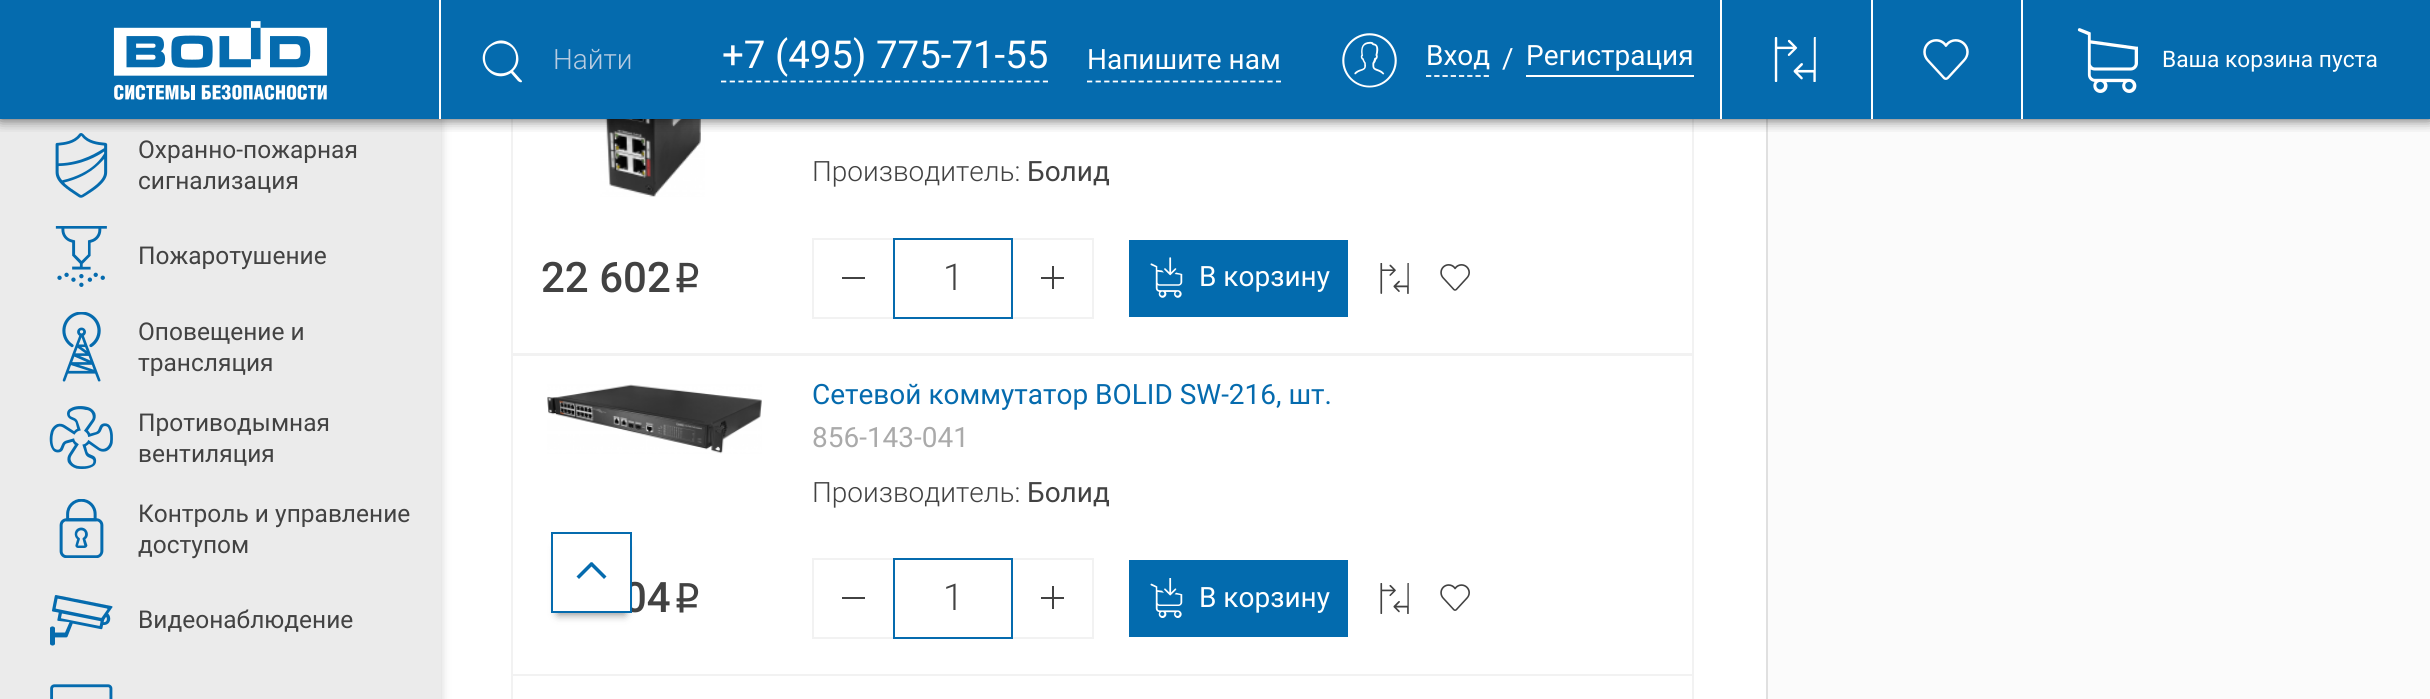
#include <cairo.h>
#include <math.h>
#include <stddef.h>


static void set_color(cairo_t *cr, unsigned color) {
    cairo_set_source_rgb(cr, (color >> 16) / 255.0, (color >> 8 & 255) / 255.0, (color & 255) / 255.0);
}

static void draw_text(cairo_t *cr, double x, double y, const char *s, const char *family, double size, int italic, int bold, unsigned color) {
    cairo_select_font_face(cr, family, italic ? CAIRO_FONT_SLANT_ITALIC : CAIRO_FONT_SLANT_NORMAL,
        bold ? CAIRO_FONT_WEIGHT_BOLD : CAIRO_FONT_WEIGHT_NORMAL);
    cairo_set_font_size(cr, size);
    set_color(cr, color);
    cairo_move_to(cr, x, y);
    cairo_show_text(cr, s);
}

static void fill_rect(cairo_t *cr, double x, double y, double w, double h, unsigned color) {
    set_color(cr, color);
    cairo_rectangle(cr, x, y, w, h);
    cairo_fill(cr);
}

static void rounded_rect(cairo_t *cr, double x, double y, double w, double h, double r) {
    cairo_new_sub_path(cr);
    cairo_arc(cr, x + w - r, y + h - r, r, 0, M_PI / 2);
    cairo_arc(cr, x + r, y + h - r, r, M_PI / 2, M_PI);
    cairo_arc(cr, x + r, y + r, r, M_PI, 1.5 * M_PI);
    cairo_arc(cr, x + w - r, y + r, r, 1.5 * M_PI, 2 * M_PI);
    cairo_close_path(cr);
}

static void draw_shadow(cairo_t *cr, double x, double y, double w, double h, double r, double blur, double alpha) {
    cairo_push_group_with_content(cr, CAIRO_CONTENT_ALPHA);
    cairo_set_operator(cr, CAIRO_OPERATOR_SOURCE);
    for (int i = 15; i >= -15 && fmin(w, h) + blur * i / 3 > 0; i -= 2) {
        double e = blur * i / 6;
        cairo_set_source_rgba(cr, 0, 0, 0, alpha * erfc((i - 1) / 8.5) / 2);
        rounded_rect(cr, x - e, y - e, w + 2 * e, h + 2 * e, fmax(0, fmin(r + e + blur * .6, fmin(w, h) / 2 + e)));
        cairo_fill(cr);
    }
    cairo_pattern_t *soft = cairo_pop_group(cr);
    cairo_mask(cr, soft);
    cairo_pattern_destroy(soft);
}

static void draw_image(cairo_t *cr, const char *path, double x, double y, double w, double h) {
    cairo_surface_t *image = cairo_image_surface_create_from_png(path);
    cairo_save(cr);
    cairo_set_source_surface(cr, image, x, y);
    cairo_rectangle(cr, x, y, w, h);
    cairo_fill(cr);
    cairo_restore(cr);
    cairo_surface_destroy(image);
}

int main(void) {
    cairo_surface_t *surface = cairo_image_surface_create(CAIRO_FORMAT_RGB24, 2430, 699);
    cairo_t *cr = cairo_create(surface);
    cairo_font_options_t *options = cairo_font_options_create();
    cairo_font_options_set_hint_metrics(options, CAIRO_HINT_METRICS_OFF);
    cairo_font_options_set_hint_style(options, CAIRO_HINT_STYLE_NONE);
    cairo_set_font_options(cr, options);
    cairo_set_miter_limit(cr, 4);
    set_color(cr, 0xFFFFFF);
    cairo_paint(cr);
    set_color(cr, 0x000000);
    draw_shadow(cr, 0, -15, 441, 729, 0, 5, 0.19);
    cairo_rectangle(cr, 512, -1, 1181, 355);
    set_color(cr, 0xF2F2F2);
    cairo_stroke(cr);
    fill_rect(cr, 0, 0, 2430, 119, 0x056BAE);
    fill_rect(cr, 0, 119, 441, 580, 0xEBEBEB);
    draw_image(cr, "assets/img6.png", 55, 133, 53, 65);
    draw_image(cr, "assets/img13.png", 600, 119, 105, 78);
    fill_rect(cr, 1768, 119, 662, 580, 0xFBFBFB);
    fill_rect(cr, 1766, 119, 2, 580, 0xE0E0E0);
    cairo_save(cr);
    cairo_rectangle(cr, 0, 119, 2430, 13);
    cairo_clip(cr);
    set_color(cr, 0x000000);
    draw_shadow(cr, 0, 0, 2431, 119, 0, 7, 0.69);
    cairo_restore(cr);
    fill_rect(cr, 439, 0, 2, 119, 0xFFFFFF);
    draw_image(cr, "assets/img1.png", 113, 21, 215, 79);
    cairo_new_path(cr);
    cairo_move_to(cr, 521, 80);
    cairo_line_to(cr, 513, 71);
    cairo_curve_to(cr, 528, 57, 509, 31, 491, 44);
    cairo_curve_to(cr, 471, 57, 491, 86, 511, 73);
    cairo_line_to(cr, 518, 81);
    cairo_curve_to(cr, 522, 84, 523, 81, 521, 80);
    cairo_close_path(cr);
    cairo_move_to(cr, 485, 58);
    cairo_curve_to(cr, 485, 39, 516, 38, 516, 58);
    cairo_curve_to(cr, 516, 79, 485, 78, 485, 58);
    cairo_close_path(cr);
    cairo_fill(cr);
    draw_text(cr, 553, 69, "Найти", "Roboto Light", 28, 0, 0, 0xB8CCE1);
    cairo_new_path(cr);
    cairo_move_to(cr, 721, 81.5);
    cairo_line_to(cr, 1048, 81.5);
    set_color(cr, 0xFFFFFF);
    cairo_set_line_width(cr, 1.8);
    cairo_set_dash(cr, (double[]){5.25, 3.45}, 2, 0);
    cairo_stroke(cr);
    draw_text(cr, 722, 68, "+7 (495) 775-71-55", "Roboto", 38.5, 0, 0, 0xFFFFFF);
    cairo_new_path(cr);
    cairo_move_to(cr, 1087, 81.5);
    cairo_line_to(cr, 1281, 81.5);
    cairo_set_dash(cr, (double[]){5.25, 3.34}, 2, 0);
    cairo_stroke(cr);
    draw_text(cr, 1087, 69, "Напишите нам", "Roboto", 28, 0, 0, 0xFFFFFF);
    draw_image(cr, "assets/img2.png", 1342, 33, 55, 55);
    cairo_new_path(cr);
    cairo_move_to(cr, 1426, 76);
    cairo_line_to(cr, 1489, 76);
    cairo_set_dash(cr, (double[]){5.25, 2.99}, 2, 0);
    cairo_stroke(cr);
    draw_text(cr, 1426, 65, "Вход", "Roboto", 28, 0, 0, 0xFFFFFF);
    draw_text(cr, 1502, 68, "/", "Roboto", 28, 0, 0, 0xFFFFFF);
    fill_rect(cr, 1526, 75, 168, 2, 0xFFFFFF);
    draw_text(cr, 1526, 65, "Регистрация", "Roboto", 28, 0, 0, 0xFFFFFF);
    fill_rect(cr, 1720, 0, 2, 119, 0xFFFFFF);
    draw_image(cr, "assets/img3.png", 1774, 37, 42, 45);
    fill_rect(cr, 1871, 0, 2, 119, 0xFFFFFF);
    draw_image(cr, "assets/img4.png", 1923, 39, 46, 41);
    fill_rect(cr, 2021, 0, 2, 119, 0xFFFFFF);
    draw_image(cr, "assets/img5.png", 2077, 28, 61, 65);
    draw_text(cr, 2162, 67, "Ваша корзина пуста", "Roboto", 22.75, 0, 0, 0xFFFFFF);
    draw_text(cr, 138, 158, "Охранно-пожарная", "Roboto", 24.5, 0, 0, 0x424242);
    draw_text(cr, 138, 189, "сигнализация", "Roboto", 24.5, 0, 0, 0x424242);
    draw_image(cr, "assets/img7.png", 55, 226, 52, 61);
    draw_text(cr, 138, 264, "Пожаротушение", "Roboto", 24.5, 0, 0, 0x424242);
    draw_image(cr, "assets/img8.png", 62, 312, 39, 70);
    draw_text(cr, 138, 340, "Оповещение и", "Roboto", 24.5, 0, 0, 0x424242);
    draw_text(cr, 138, 371, "трансляция", "Roboto", 24.5, 0, 0, 0x424242);
    draw_image(cr, "assets/img9.png", 49, 406, 64, 63);
    draw_text(cr, 138, 431, "Противодымная", "Roboto", 24.5, 0, 0, 0x424242);
    draw_text(cr, 138, 462, "вентиляция", "Roboto", 24.5, 0, 0, 0x424242);
    draw_image(cr, "assets/img10.png", 59, 499, 45, 59);
    draw_text(cr, 138, 522, "Контроль и управление", "Roboto", 24.5, 0, 0, 0x424242);
    draw_text(cr, 138, 553, "доступом", "Roboto", 24.5, 0, 0, 0x424242);
    draw_image(cr, "assets/img11.png", 50, 595, 63, 51);
    draw_text(cr, 138, 628, "Видеонаблюдение", "Roboto", 24.5, 0, 0, 0x424242);
    draw_image(cr, "assets/img12.png", 50, 684, 63, 15);
    draw_text(cr, 812, 181, "Производитель:", "Roboto Light", 28, 0, 0, 0x424242);
    draw_text(cr, 1027, 181, "Болид", "Roboto", 28, 0, 0, 0x424242);
    draw_text(cr, 541, 292, "22 602", "Roboto Medium", 42, 0, 0, 0x424242);
    draw_image(cr, "assets/img14.png", 676, 262, 23, 31);
    fill_rect(cr, 812, 238, 81, 2, 0xF2F2F2);
    fill_rect(cr, 812, 317, 81, 2, 0xF2F2F2);
    fill_rect(cr, 812, 238, 2, 81, 0xF2F2F2);
    fill_rect(cr, 842, 277, 23, 2, 0x424242);
    cairo_rectangle(cr, 894, 239, 118, 79);
    set_color(cr, 0x056BAE);
    cairo_set_line_width(cr, 2);
    cairo_set_dash(cr, NULL, 0, 0);
    cairo_stroke(cr);
    draw_text(cr, 943, 290, "1", "Roboto Light", 37, 0, 0, 0x424242);
    fill_rect(cr, 1013, 238, 81, 2, 0xF2F2F2);
    fill_rect(cr, 1092, 238, 2, 81, 0xF2F2F2);
    fill_rect(cr, 1013, 317, 81, 2, 0xF2F2F2);
    fill_rect(cr, 1041, 277, 23, 2, 0x424242);
    fill_rect(cr, 1052, 266, 2, 23, 0x424242);
    fill_rect(cr, 1129, 240, 219, 77, 0x036BAE);
    draw_image(cr, "assets/img15.png", 1150, 257, 33, 41);
    draw_text(cr, 1199, 286, "В корзину", "Roboto", 28, 0, 0, 0xFFFFFF);
    draw_image(cr, "assets/img16.png", 1380, 263, 29, 31);
    draw_image(cr, "assets/img17.png", 1440, 264, 30, 27);
    cairo_rectangle(cr, 512, 355, 1181, 320);
    set_color(cr, 0xF2F2F2);
    cairo_stroke(cr);
    draw_image(cr, "assets/img18.png", 547, 384, 215, 70);
    draw_text(cr, 812, 404, "Сетевой коммутатор BOLID SW-216, шт.", "Roboto", 28, 0, 0, 0x056BAE);
    draw_text(cr, 812, 447, "856-143-041", "Roboto", 28, 0, 0, 0xAAAAAA);
    draw_text(cr, 812, 502, "Производитель:", "Roboto Light", 28, 0, 0, 0x424242);
    draw_text(cr, 1027, 502, "Болид", "Roboto", 28, 0, 0, 0x424242);
    draw_text(cr, 623, 612, "04", "Roboto Medium", 42, 0, 0, 0x424242);
    draw_image(cr, "assets/img19.png", 676, 583, 23, 30);
    fill_rect(cr, 812, 558, 81, 2, 0xF2F2F2);
    fill_rect(cr, 812, 637, 81, 2, 0xF2F2F2);
    fill_rect(cr, 812, 558, 2, 81, 0xF2F2F2);
    fill_rect(cr, 842, 597, 23, 2, 0x424242);
    cairo_rectangle(cr, 894, 559, 118, 79);
    set_color(cr, 0x056BAE);
    cairo_stroke(cr);
    draw_text(cr, 943, 610, "1", "Roboto Light", 37, 0, 0, 0x424242);
    fill_rect(cr, 1013, 558, 81, 2, 0xF2F2F2);
    fill_rect(cr, 1092, 558, 2, 81, 0xF2F2F2);
    fill_rect(cr, 1013, 637, 81, 2, 0xF2F2F2);
    fill_rect(cr, 1041, 597, 23, 2, 0x424242);
    fill_rect(cr, 1052, 586, 2, 23, 0x424242);
    fill_rect(cr, 1129, 560, 219, 77, 0x036BAE);
    draw_image(cr, "assets/img20.png", 1150, 578, 33, 40);
    draw_text(cr, 1199, 607, "В корзину", "Roboto", 28, 0, 0, 0xFFFFFF);
    draw_image(cr, "assets/img21.png", 1380, 583, 29, 31);
    draw_image(cr, "assets/img22.png", 1440, 584, 30, 27);
    cairo_rectangle(cr, 512, 675, 1181, 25);
    set_color(cr, 0xF2F2F2);
    cairo_stroke(cr);
    set_color(cr, 0x000000);
    draw_shadow(cr, 558, 548, 67, 66, 0, 4.5, 0.5);
    fill_rect(cr, 553, 539, 77, 72, 0xFFFFFF);
    cairo_rectangle(cr, 552, 533, 79, 79);
    set_color(cr, 0x056BAE);
    cairo_stroke(cr);
    cairo_new_path(cr);
    cairo_move_to(cr, 591, 562);
    cairo_line_to(cr, 593.5, 564.5);
    cairo_line_to(cr, 579, 579);
    cairo_line_to(cr, 576.5, 576.5);
    cairo_close_path(cr);
    cairo_fill(cr);
    cairo_new_path(cr);
    cairo_move_to(cr, 589.5, 564.5);
    cairo_line_to(cr, 592, 562);
    cairo_line_to(cr, 606.5, 576.5);
    cairo_line_to(cr, 604, 579);
    cairo_close_path(cr);
    cairo_fill(cr);
    cairo_surface_write_to_png(surface, "output.png");
    cairo_font_options_destroy(options);
    cairo_destroy(cr);
    cairo_surface_destroy(surface);
    return 0;
}
